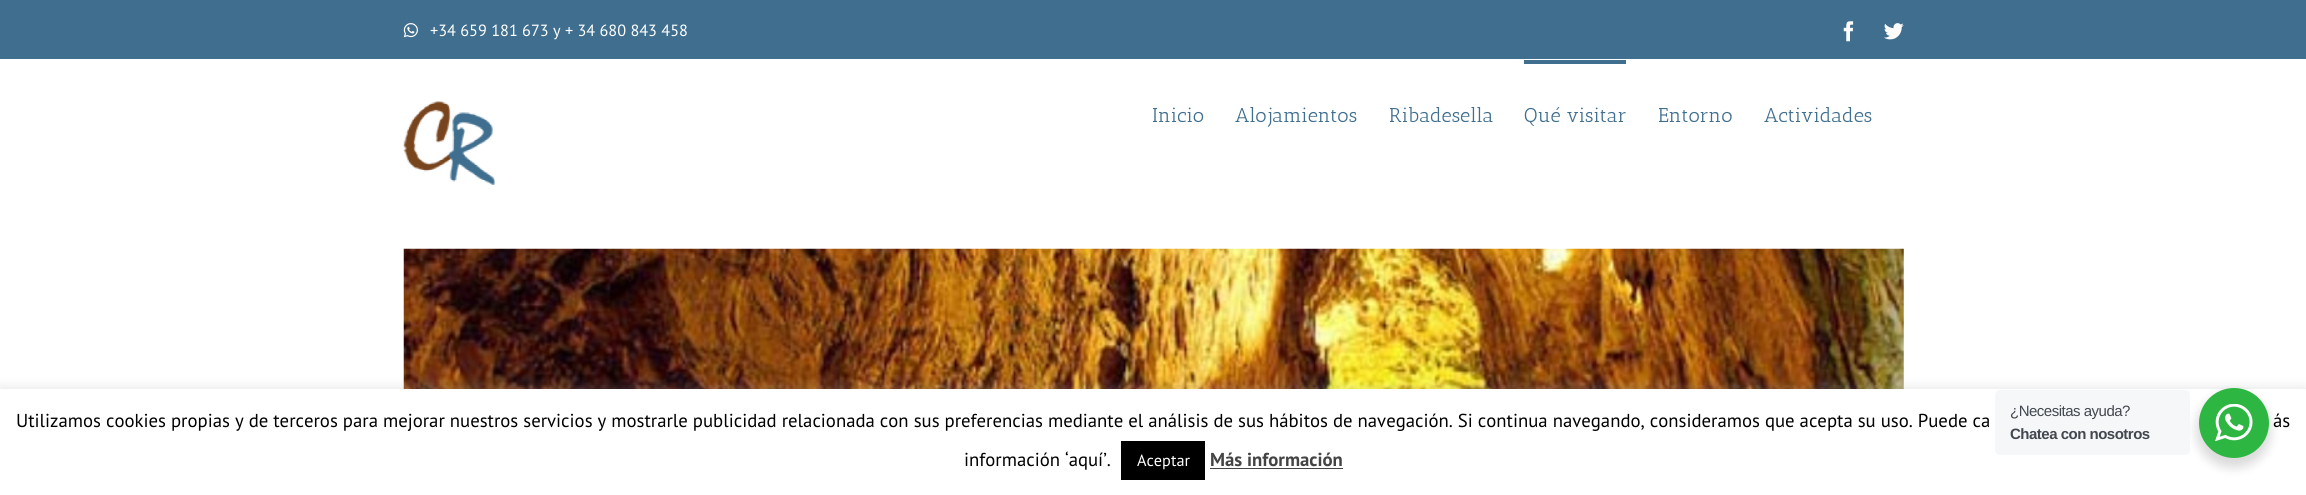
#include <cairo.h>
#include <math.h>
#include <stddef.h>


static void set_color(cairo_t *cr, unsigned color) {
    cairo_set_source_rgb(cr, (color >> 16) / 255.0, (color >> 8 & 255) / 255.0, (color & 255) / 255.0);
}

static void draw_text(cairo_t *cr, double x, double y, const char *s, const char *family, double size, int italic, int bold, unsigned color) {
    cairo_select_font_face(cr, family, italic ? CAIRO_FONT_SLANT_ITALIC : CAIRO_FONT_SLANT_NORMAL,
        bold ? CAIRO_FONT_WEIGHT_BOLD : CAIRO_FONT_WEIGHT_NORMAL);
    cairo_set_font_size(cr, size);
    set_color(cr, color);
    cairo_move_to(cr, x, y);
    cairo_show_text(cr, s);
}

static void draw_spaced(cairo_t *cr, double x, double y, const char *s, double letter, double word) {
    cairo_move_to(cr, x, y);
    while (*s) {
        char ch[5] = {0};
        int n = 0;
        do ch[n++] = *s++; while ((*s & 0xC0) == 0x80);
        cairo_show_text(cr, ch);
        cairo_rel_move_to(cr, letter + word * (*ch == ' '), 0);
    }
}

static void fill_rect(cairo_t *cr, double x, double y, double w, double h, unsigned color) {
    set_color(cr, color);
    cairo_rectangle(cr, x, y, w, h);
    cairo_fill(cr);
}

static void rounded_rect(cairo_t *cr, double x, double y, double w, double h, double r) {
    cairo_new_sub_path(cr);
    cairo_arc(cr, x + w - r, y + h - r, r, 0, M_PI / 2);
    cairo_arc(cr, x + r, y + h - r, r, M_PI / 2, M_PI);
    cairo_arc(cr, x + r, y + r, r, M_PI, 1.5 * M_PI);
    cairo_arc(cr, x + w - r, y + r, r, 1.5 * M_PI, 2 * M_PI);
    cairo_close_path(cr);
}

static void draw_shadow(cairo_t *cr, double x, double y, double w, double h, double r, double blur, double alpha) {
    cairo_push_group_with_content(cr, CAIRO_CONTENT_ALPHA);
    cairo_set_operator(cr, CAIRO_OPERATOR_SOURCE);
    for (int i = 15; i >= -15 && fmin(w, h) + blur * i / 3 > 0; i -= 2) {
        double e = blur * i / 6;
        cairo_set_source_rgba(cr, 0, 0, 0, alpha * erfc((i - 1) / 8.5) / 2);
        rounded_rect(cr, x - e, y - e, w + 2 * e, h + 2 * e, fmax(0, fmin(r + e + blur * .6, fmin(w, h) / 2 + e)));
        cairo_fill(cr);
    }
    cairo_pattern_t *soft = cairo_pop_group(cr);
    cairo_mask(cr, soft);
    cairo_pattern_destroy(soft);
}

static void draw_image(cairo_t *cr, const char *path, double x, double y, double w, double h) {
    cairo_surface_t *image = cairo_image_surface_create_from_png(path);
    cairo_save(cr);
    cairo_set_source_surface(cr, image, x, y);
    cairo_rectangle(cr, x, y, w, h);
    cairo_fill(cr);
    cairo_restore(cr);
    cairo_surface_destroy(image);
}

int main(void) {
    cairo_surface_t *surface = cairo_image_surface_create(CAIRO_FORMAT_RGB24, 2306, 495);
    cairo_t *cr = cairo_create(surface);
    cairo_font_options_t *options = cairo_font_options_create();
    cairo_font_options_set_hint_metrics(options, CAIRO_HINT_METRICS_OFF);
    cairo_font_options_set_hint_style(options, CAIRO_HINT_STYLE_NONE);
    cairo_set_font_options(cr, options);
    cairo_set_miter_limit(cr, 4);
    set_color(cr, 0xFFFFFF);
    cairo_paint(cr);
    fill_rect(cr, 0, 0, 2306, 59, 0x3F6E8F);
    draw_image(cr, "assets/img1.png", 403, 23, 15, 15);
    draw_text(cr, 430, 36, "+34 659 181 673 y + 34 680 843 458", "PT Sans", 16.25, 0, 0, 0xFFFFFF);
    draw_image(cr, "assets/img2.png", 1843, 21, 11, 21);
    draw_image(cr, "assets/img3.png", 1884, 23, 20, 17);
    draw_image(cr, "assets/img4.png", 403, 101, 92, 84);
    draw_text(cr, 1152, 122, "Inicio", "Antic Slab", 20, 0, 0, 0x3F6E8F);
    draw_text(cr, 1235, 122, "Alojamientos", "Antic Slab", 20, 0, 0, 0x3F6E8F);
    draw_text(cr, 1389, 122, "Ribadesella", "Antic Slab", 20, 0, 0, 0x3F6E8F);
    fill_rect(cr, 1524, 60, 102, 4, 0x3F6E8F);
    draw_text(cr, 1524, 122, "Qué visitar", "Antic Slab", 20, 0, 0, 0x3F6E8F);
    draw_text(cr, 1658, 122, "Entorno", "Antic Slab", 20, 0, 0, 0x3F6E8F);
    draw_text(cr, 1764, 122, "Actividades", "Antic Slab", 20, 0, 0, 0x3F6E8F);
    draw_image(cr, "assets/img5.png", 403, 248, 1501, 141);
    set_color(cr, 0xACABAB);
    draw_shadow(cr, 0, 388, 2306, 106, 0, 6, 0.3);
    fill_rect(cr, 0, 389, 2306, 106, 0xFFFFFF);
    set_color(cr, 0x000000);
    draw_shadow(cr, 2196, 393, 75, 75, 37.5, 5, 0.14);
    set_color(cr, 0xF5F7F9);
    rounded_rect(cr, 1995, 390, 195, 65, 5);
    cairo_fill(cr);
    cairo_select_font_face(cr, "Liberation Sans", CAIRO_FONT_SLANT_NORMAL, CAIRO_FONT_WEIGHT_NORMAL);
    cairo_set_font_size(cr, 15);
    set_color(cr, 0x43474E);
    draw_spaced(cr, 2010, 416, "¿Necesitas ayuda?", -0.5, 0);
    cairo_select_font_face(cr, "Liberation Sans", CAIRO_FONT_SLANT_NORMAL, CAIRO_FONT_WEIGHT_BOLD);
    draw_spaced(cr, 2010, 439, "Chatea con nosotros", -0.5, 0);
    set_color(cr, 0x2DB742);
    cairo_new_path(cr);
    cairo_arc(cr, 2234, 423, 35, 0, 2 * M_PI);
    cairo_fill(cr);
    draw_image(cr, "assets/img6.png", 2215, 404, 38, 37);
    draw_text(cr, 16, 427, "Utilizamos cookies propias y de terceros para mejorar nuestros servicios y mostrarle publicidad relacionada con sus preferencias mediante el análisis de sus hábitos de navegación. Si continua navegando, consideramos que acepta su uso. Puede ca", "PT Sans", 18.75, 0, 0, 0x000000);
    draw_text(cr, 2273, 427, "ás", "PT Sans", 18.75, 0, 0, 0x000000);
    draw_text(cr, 964, 466, "información ‘aquí’.", "PT Sans", 18.75, 0, 0, 0x000000);
    fill_rect(cr, 1121, 441, 84, 39, 0x000000);
    draw_text(cr, 1137, 466, "Aceptar", "PT Sans", 16.25, 0, 0, 0xFFFFFF);
    draw_text(cr, 1210, 466, "Más información", "PT Sans", 18.75, 0, 1, 0x444444);
    fill_rect(cr, 1210, 468, 133, 1, 0x444444);
    cairo_surface_write_to_png(surface, "output.png");
    cairo_font_options_destroy(options);
    cairo_destroy(cr);
    cairo_surface_destroy(surface);
    return 0;
}
